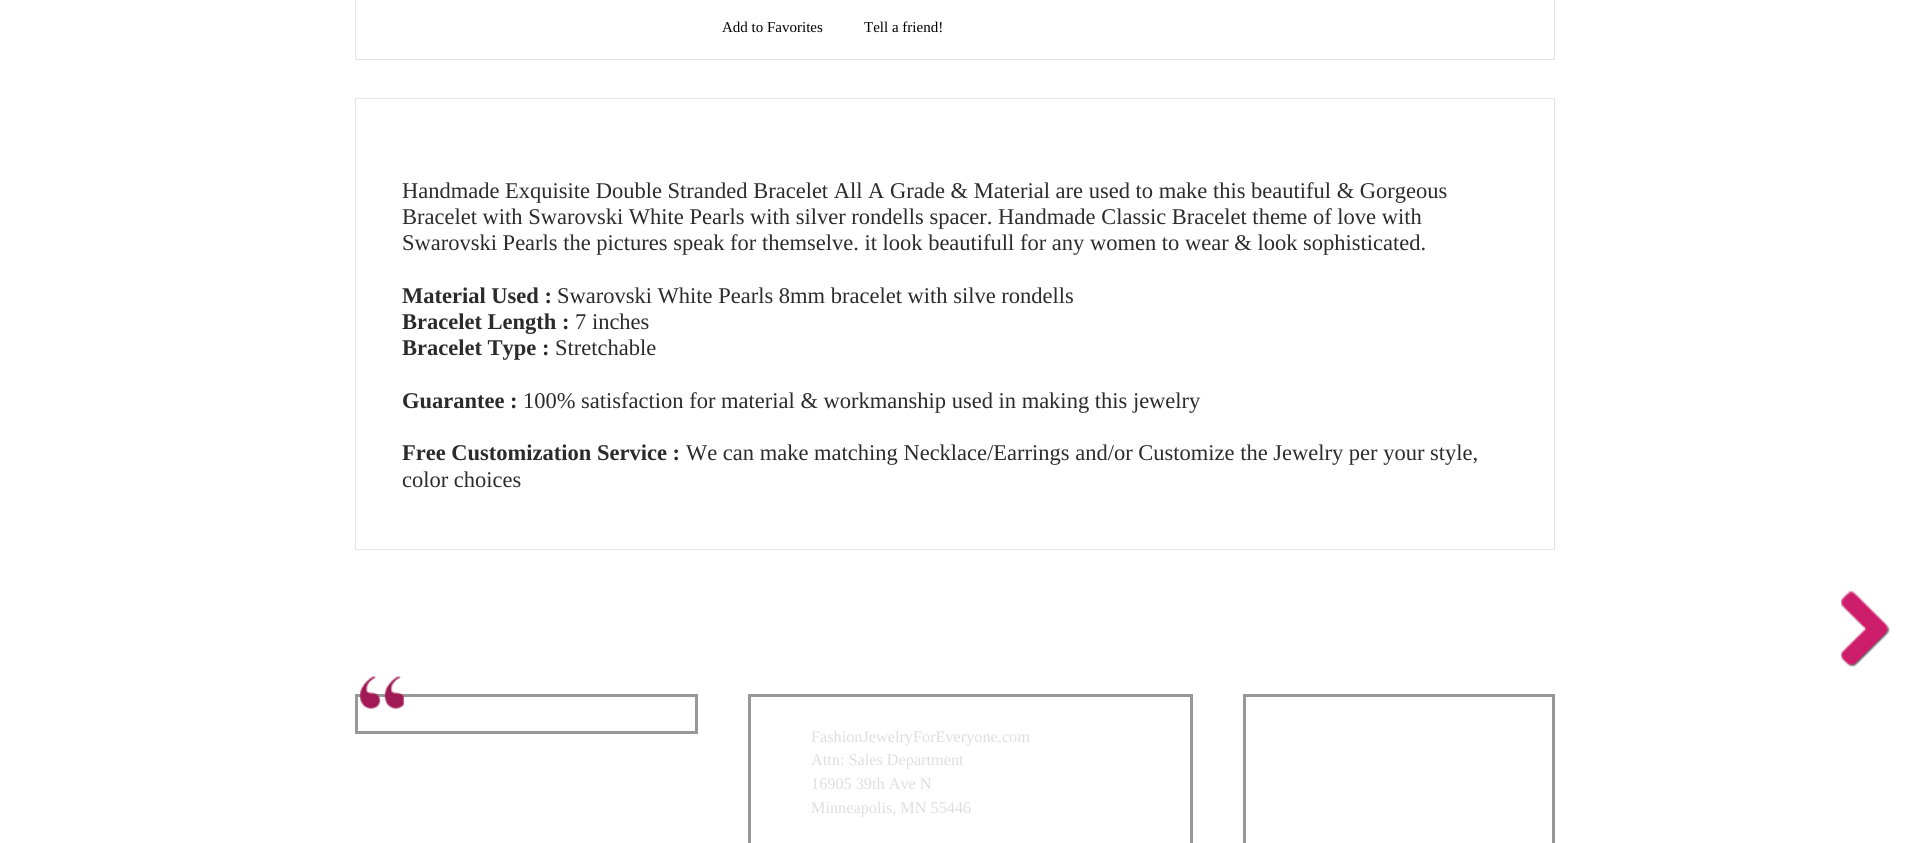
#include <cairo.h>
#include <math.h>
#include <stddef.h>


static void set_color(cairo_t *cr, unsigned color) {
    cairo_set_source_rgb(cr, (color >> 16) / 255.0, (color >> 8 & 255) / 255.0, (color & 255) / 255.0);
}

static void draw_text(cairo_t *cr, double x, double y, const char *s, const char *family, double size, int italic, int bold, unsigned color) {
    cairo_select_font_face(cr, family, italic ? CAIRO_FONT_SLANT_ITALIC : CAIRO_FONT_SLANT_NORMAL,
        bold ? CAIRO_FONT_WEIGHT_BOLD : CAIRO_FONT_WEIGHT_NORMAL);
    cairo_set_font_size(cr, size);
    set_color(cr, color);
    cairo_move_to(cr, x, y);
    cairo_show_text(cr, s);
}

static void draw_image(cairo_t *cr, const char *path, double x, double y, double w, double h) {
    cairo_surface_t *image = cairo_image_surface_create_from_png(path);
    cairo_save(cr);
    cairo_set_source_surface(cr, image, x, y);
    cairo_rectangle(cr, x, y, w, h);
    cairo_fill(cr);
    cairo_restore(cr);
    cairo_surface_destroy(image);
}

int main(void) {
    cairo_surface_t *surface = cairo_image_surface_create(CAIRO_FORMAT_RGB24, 1908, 843);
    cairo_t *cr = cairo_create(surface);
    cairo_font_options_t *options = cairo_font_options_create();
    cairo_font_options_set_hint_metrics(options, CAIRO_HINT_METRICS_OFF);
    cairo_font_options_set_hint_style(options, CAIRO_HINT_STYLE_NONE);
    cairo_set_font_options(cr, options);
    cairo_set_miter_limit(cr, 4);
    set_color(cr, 0xFFFFFF);
    cairo_paint(cr);
    cairo_rectangle(cr, 355.5, -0.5, 1199, 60);
    set_color(cr, 0xE4E4E4);
    cairo_set_line_width(cr, 1);
    cairo_stroke(cr);
    draw_text(cr, 722, 32, "Add to Favorites", "Liberation Serif", 15, 0, 0, 0x000000);
    draw_text(cr, 864, 32, "Tell a friend!", "Liberation Serif", 15, 0, 0, 0x000000);
    draw_image(cr, "assets/img1.png", 1841, 591, 49, 76);
    cairo_rectangle(cr, 355.5, 98.5, 1199, 451);
    set_color(cr, 0xE4E4E4);
    cairo_stroke(cr);
    draw_text(cr, 402, 198, "Handmade Exquisite Double Stranded Bracelet All A Grade & Material are used to make this beautiful & Gorgeous", "Liberation Serif", 22.5, 0, 0, 0x2B2B2B);
    draw_text(cr, 402, 224, "Bracelet with Swarovski White Pearls with silver rondells spacer. Handmade Classic Bracelet theme of love with", "Liberation Serif", 22.5, 0, 0, 0x2B2B2B);
    draw_text(cr, 402, 250, "Swarovski Pearls the pictures speak for themselve. it look beautifull for any women to wear & look sophisticated.", "Liberation Serif", 22.5, 0, 0, 0x2B2B2B);
    draw_text(cr, 402, 303, "Material Used :", "Liberation Serif", 22.5, 0, 1, 0x2B2B2B);
    draw_text(cr, 557, 303, "Swarovski White Pearls 8mm bracelet with silve rondells", "Liberation Serif", 22.5, 0, 0, 0x2B2B2B);
    draw_text(cr, 402, 329, "Bracelet Length :", "Liberation Serif", 22.5, 0, 1, 0x2B2B2B);
    draw_text(cr, 575, 329, "7 inches", "Liberation Serif", 22.5, 0, 0, 0x2B2B2B);
    draw_text(cr, 402, 355, "Bracelet Type :", "Liberation Serif", 22.5, 0, 1, 0x2B2B2B);
    draw_text(cr, 555, 355, "Stretchable", "Liberation Serif", 22.5, 0, 0, 0x2B2B2B);
    draw_text(cr, 402, 408, "Guarantee :", "Liberation Serif", 22.5, 0, 1, 0x2B2B2B);
    draw_text(cr, 523, 408, "100% satisfaction for material & workmanship used in making this jewelry", "Liberation Serif", 22.5, 0, 0, 0x2B2B2B);
    draw_text(cr, 402, 460, "Free Customization Service :", "Liberation Serif", 22.5, 0, 1, 0x2B2B2B);
    draw_text(cr, 686, 460, "We can make matching Necklace/Earrings and/or Customize the Jewelry per your style,", "Liberation Serif", 22.5, 0, 0, 0x2B2B2B);
    draw_text(cr, 402, 487, "color choices", "Liberation Serif", 22.5, 0, 0, 0x2B2B2B);
    cairo_rectangle(cr, 356.5, 695.5, 340, 37);
    set_color(cr, 0x989898);
    cairo_set_line_width(cr, 3);
    cairo_stroke(cr);
    draw_image(cr, "assets/img2.png", 360, 676, 44, 33);
    cairo_rectangle(cr, 749.5, 695.5, 442, 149);
    cairo_stroke(cr);
    draw_text(cr, 811, 742, "FashionJewelryForEveryone.com", "Liberation Serif", 16.25, 0, 0, 0xDEDEDE);
    draw_text(cr, 811, 765, "Attn: Sales Department", "Liberation Serif", 16.25, 0, 0, 0xDEDEDE);
    draw_text(cr, 811, 789, "16905 39th Ave N", "Liberation Serif", 16.25, 0, 0, 0xDEDEDE);
    draw_text(cr, 811, 813, "Minneapolis, MN 55446", "Liberation Serif", 16.25, 0, 0, 0xDEDEDE);
    cairo_rectangle(cr, 1244.5, 695.5, 309, 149);
    set_color(cr, 0x989898);
    cairo_stroke(cr);
    cairo_surface_write_to_png(surface, "output.png");
    cairo_font_options_destroy(options);
    cairo_destroy(cr);
    cairo_surface_destroy(surface);
    return 0;
}
